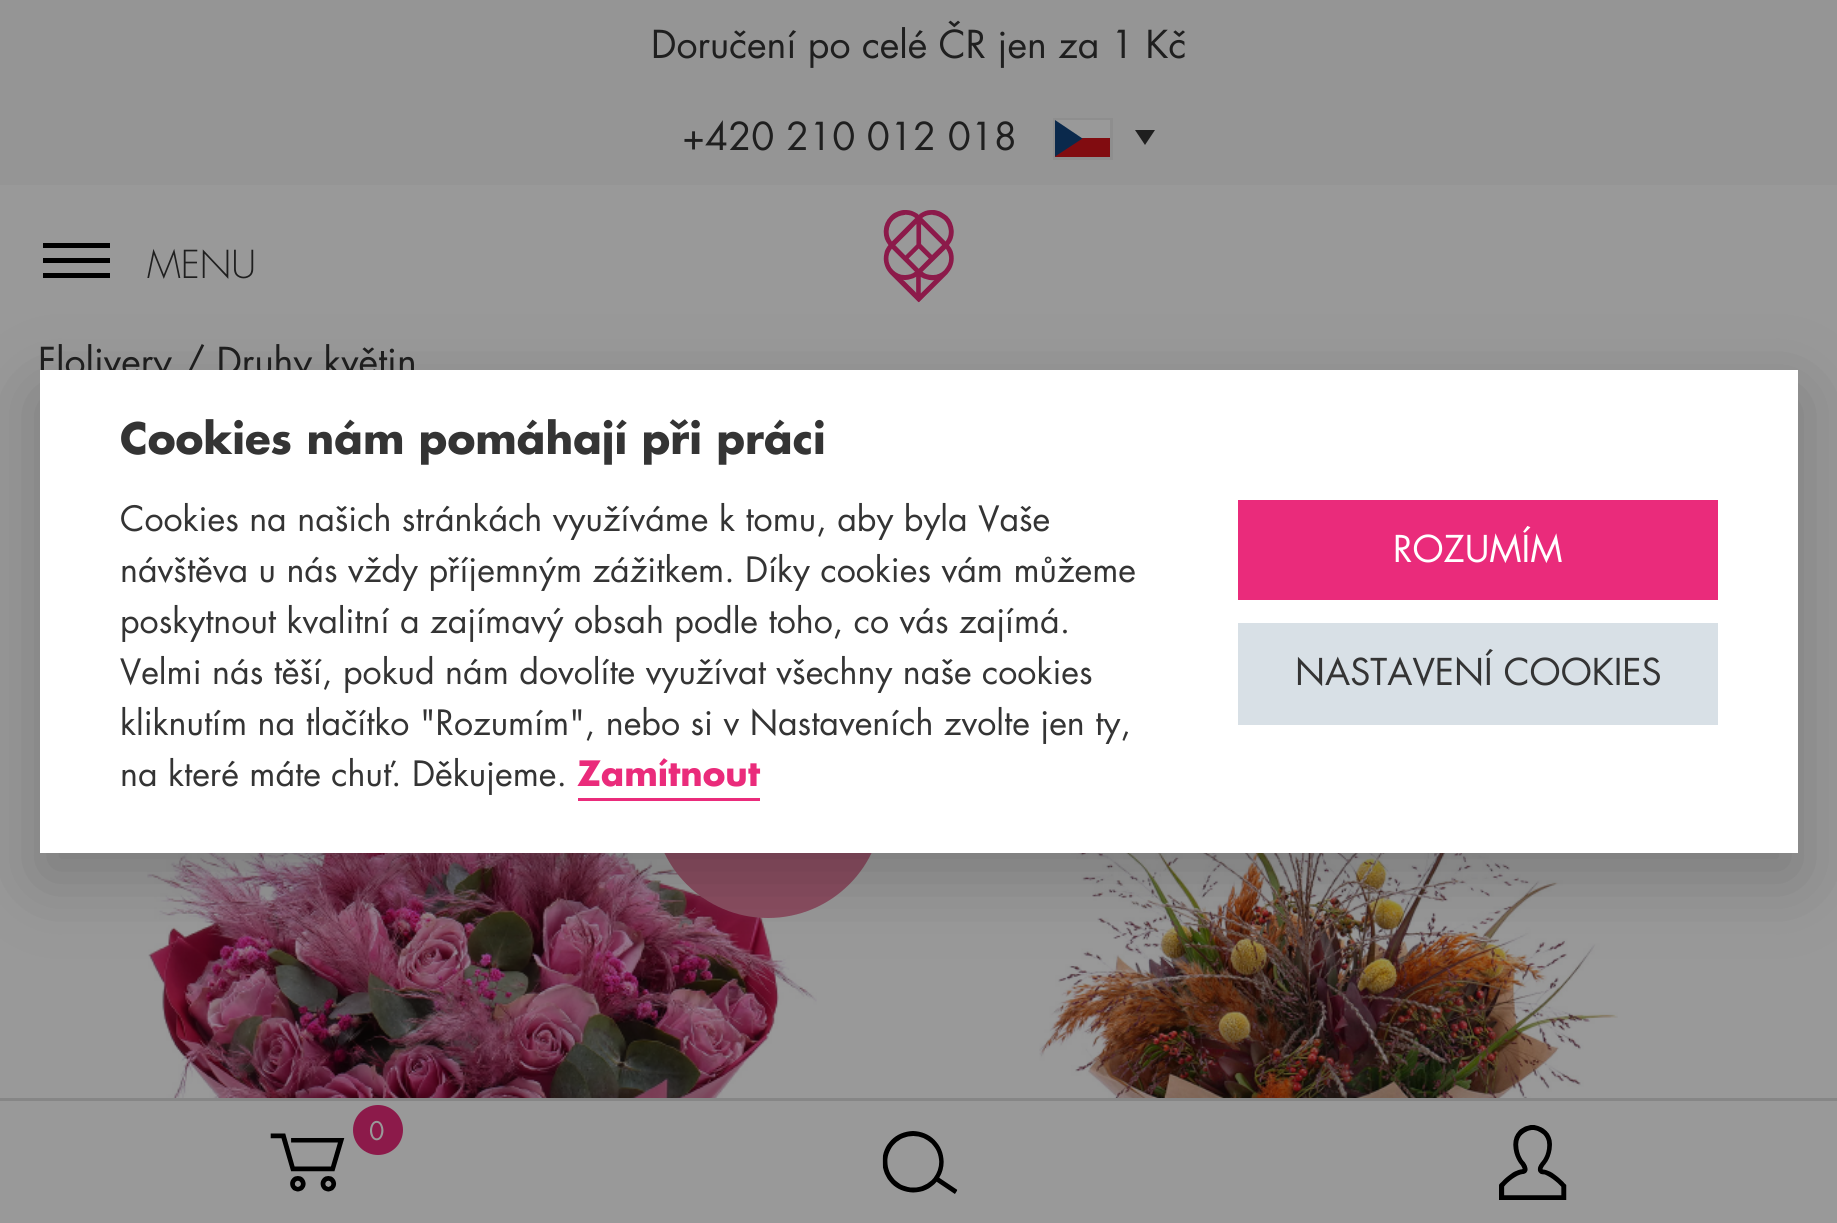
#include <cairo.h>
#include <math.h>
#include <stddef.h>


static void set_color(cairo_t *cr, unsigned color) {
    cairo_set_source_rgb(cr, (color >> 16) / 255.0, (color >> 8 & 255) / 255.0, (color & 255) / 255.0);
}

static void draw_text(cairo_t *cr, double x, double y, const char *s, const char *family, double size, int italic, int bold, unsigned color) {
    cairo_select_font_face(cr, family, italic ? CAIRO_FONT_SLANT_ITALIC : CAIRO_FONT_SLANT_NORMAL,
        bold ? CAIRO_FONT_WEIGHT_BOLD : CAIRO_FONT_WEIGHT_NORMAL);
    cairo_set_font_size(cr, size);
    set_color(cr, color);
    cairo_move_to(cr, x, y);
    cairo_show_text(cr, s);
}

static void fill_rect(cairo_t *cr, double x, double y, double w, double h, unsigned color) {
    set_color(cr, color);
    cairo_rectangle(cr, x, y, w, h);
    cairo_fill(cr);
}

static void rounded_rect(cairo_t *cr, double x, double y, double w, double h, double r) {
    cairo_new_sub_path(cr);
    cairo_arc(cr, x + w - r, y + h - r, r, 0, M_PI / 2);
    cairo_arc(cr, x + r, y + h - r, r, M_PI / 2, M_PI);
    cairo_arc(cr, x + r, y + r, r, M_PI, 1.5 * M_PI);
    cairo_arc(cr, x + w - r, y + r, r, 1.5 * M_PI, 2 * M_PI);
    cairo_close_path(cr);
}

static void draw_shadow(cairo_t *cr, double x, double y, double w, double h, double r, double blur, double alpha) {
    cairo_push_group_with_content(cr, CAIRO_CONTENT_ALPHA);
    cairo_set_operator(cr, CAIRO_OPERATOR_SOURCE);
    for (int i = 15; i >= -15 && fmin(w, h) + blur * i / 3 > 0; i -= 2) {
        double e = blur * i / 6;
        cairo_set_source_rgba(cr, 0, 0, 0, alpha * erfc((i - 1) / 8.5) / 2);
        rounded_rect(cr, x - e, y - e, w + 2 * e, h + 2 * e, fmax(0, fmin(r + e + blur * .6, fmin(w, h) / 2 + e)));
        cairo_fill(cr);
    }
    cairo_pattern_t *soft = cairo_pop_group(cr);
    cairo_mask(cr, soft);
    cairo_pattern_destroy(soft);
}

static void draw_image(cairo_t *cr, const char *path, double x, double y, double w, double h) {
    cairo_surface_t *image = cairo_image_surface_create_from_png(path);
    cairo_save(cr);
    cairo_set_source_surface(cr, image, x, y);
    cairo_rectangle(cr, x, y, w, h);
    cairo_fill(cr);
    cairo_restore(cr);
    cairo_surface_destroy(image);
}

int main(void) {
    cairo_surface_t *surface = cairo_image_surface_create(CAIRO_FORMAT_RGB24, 1837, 1223);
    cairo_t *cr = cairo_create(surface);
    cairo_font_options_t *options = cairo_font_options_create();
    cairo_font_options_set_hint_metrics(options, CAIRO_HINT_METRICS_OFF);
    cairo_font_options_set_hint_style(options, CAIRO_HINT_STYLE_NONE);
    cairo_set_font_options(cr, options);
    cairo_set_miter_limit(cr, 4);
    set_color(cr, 0x999999);
    cairo_paint(cr);
    fill_rect(cr, 0, 0, 1837, 185, 0x959595);
    draw_text(cr, 651, 58, "Doručení po celé ČR jen za 1 Kč", "Futura", 37.5, 0, 0, 0x1F1F1F);
    draw_text(cr, 682, 150, "+420 210 012 018", "Futura", 37.5, 0, 0, 0x1F1F1F);
    cairo_rectangle(cr, 1054.5, 119.5, 57, 39);
    set_color(cr, 0x8E8E8E);
    cairo_set_line_width(cr, 3);
    cairo_stroke(cr);
    fill_rect(cr, 1055, 138, 55, 19, 0x810C10);
    fill_rect(cr, 1055, 120, 55, 18, 0x999999);
    set_color(cr, 0x0A294C);
    cairo_new_path(cr);
    cairo_move_to(cr, 1082.5, 138.5);
    cairo_line_to(cr, 1055, 120);
    cairo_line_to(cr, 1055, 156.5);
    cairo_close_path(cr);
    cairo_fill(cr);
    set_color(cr, 0x1F1F1F);
    cairo_new_path(cr);
    cairo_move_to(cr, 1135, 130);
    cairo_line_to(cr, 1155, 130);
    cairo_line_to(cr, 1145, 145);
    cairo_close_path(cr);
    cairo_fill(cr);
    fill_rect(cr, 43, 258, 67, 5, 0x000000);
    fill_rect(cr, 43, 243, 67, 5, 0x000000);
    fill_rect(cr, 43, 273, 67, 5, 0x000000);
    draw_text(cr, 147, 278, "MENU", "Futura Light", 37.5, 0, 0, 0x1F1F1F);
    draw_image(cr, "assets/img1.png", 883, 210, 71, 93);
    draw_text(cr, 38, 375, "Flolivery / Druhy květin", "Futura", 37.5, 0, 0, 0x1F1F1F);
    draw_image(cr, "assets/img2.png", 147, 853, 670, 245);
    set_color(cr, 0x8A4E61);
    cairo_arc(cr, 768, 803, 115, 0, 2 * M_PI);
    cairo_fill(cr);
    draw_image(cr, "assets/img3.png", 1039, 853, 579, 245);
    set_color(cr, 0x000000);
    draw_shadow(cr, 40, 395, 1758, 483, 0, 37.5, 0.2);
    fill_rect(cr, 40, 370, 1758, 483, 0xFFFFFF);
    draw_text(cr, 120, 454, "Cookies nám pomáhají při práci", "Futura", 42, 0, 1, 0x343434);
    draw_text(cr, 120, 531, "Cookies na našich stránkách využíváme k tomu, aby byla Vaše", "Futura", 34, 0, 0, 0x343434);
    draw_text(cr, 120, 582, "návštěva u nás vždy příjemným zážitkem. Díky cookies vám můžeme", "Futura", 34, 0, 0, 0x343434);
    draw_text(cr, 120, 633, "poskytnout kvalitní a zajímavý obsah podle toho, co vás zajímá.", "Futura", 34, 0, 0, 0x343434);
    draw_text(cr, 120, 684, "Velmi nás těší, pokud nám dovolíte využívat všechny naše cookies", "Futura", 34, 0, 0, 0x343434);
    draw_text(cr, 120, 735, "kliknutím na tlačítko \"Rozumím\", nebo si v Nastaveních zvolte jen ty,", "Futura", 34, 0, 0, 0x343434);
    draw_text(cr, 120, 786, "na které máte chuť. Děkujeme.", "Futura", 34, 0, 0, 0x343434);
    draw_text(cr, 577, 786, "Zamítnout", "Futura", 34, 0, 1, 0xEA2B7B);
    fill_rect(cr, 578, 798, 182, 3, 0xEA2B7B);
    fill_rect(cr, 1238, 500, 480, 100, 0xEA2B7B);
    draw_text(cr, 1393, 562, "ROZUMÍM", "Futura", 36, 0, 0, 0xFFFFFF);
    fill_rect(cr, 1238, 623, 480, 102, 0xD8E0E6);
    draw_text(cr, 1295, 685, "NASTAVENÍ COOKIES", "Futura", 36, 0, 0, 0x343434);
    fill_rect(cr, 0, 1098, 1837, 3, 0x868686);
    set_color(cr, 0x8C1A4A);
    cairo_new_path(cr);
    cairo_arc(cr, 378, 1130, 25, 0, 2 * M_PI);
    cairo_fill(cr);
    draw_text(cr, 369, 1140, "0", "Futura", 25, 0, 0, 0x999999);
    draw_image(cr, "assets/img4.png", 270, 1133, 75, 59);
    draw_image(cr, "assets/img5.png", 882, 1131, 76, 63);
    draw_image(cr, "assets/img6.png", 1499, 1125, 68, 75);
    cairo_surface_write_to_png(surface, "output.png");
    cairo_font_options_destroy(options);
    cairo_destroy(cr);
    cairo_surface_destroy(surface);
    return 0;
}
